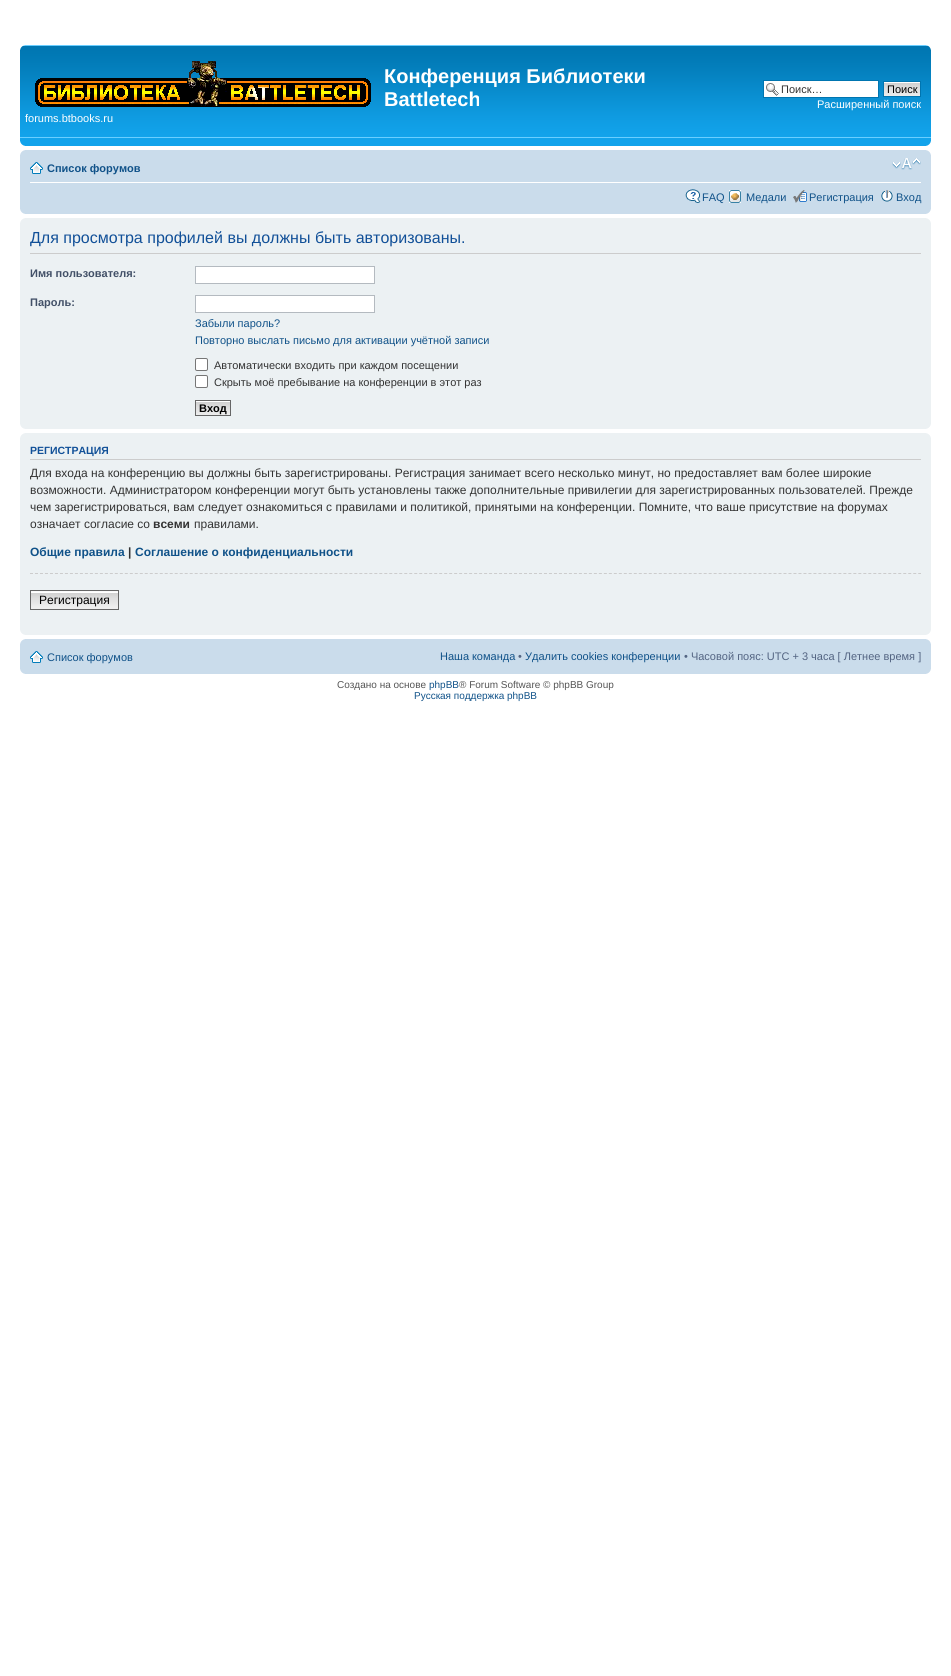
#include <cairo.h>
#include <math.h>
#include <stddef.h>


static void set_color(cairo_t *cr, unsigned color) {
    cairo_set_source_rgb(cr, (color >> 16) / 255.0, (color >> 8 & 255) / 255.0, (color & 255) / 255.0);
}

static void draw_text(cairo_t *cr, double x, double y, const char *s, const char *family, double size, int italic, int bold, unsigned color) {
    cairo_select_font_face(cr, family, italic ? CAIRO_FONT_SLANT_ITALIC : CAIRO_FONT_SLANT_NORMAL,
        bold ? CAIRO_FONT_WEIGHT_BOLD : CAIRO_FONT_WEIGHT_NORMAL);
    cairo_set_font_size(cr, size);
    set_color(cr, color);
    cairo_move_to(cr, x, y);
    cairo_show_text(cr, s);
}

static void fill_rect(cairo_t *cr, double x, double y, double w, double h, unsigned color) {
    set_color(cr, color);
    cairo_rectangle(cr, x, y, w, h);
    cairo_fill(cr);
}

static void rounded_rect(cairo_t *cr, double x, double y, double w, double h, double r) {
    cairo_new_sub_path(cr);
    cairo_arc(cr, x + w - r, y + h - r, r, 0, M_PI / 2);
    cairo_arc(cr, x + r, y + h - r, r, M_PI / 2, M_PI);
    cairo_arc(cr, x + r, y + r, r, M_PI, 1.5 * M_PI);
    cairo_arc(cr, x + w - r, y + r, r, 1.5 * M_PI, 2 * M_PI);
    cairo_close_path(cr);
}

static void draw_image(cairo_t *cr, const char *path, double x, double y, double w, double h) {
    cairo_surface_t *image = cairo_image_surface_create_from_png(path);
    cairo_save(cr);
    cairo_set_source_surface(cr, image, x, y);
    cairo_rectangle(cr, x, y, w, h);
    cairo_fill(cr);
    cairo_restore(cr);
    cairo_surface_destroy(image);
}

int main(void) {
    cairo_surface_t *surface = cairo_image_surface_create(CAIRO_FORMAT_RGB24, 951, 1676);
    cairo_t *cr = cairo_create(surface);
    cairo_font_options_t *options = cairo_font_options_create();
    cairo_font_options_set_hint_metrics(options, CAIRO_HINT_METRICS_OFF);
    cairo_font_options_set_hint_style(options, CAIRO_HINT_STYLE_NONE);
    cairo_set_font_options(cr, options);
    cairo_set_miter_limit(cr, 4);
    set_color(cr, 0xFFFFFF);
    cairo_paint(cr);
    fill_rect(cr, 20, 138, 911, 8, 0x12A3EB);
    draw_image(cr, "assets/img1.png", 20, 45, 911, 93);
    draw_image(cr, "assets/img2.png", 20, 45, 5, 5);
    draw_image(cr, "assets/img3.png", 926, 45, 5, 5);
    draw_image(cr, "assets/img4.png", 35, 61, 336, 46);
    draw_text(cr, 384, 83, "Конференция Библиотеки", "Liberation Sans", 20, 0, 1, 0xFFFFFF);
    draw_text(cr, 384, 106, "Battletech", "Liberation Sans", 20, 0, 1, 0xFFFFFF);
    draw_text(cr, 25, 122, "forums.btbooks.ru", "Liberation Sans", 11, 0, 0, 0xFFFFFF);
    fill_rect(cr, 764, 81, 114, 16, 0xFFFFFF);
    draw_image(cr, "assets/img5.png", 766, 83, 13, 13);
    cairo_rectangle(cr, 763.5, 80.5, 115, 17);
    set_color(cr, 0x0075B0);
    cairo_set_line_width(cr, 1);
    cairo_stroke(cr);
    draw_text(cr, 781, 93, "Поиск…", "Liberation Sans", 11, 0, 0, 0x333333);
    draw_image(cr, "assets/img6.png", 884, 82, 36, 14);
    cairo_rectangle(cr, 883.5, 81.5, 37, 15);
    set_color(cr, 0x0075B0);
    cairo_stroke(cr);
    draw_text(cr, 887, 93, "Поиск", "Liberation Sans", 11, 0, 0, 0x000000);
    draw_text(cr, 817, 108, "Расширенный поиск", "Liberation Sans", 11, 0, 0, 0xFFFFFF);
    draw_image(cr, "assets/img7.png", 20, 141, 5, 5);
    draw_image(cr, "assets/img8.png", 926, 141, 5, 5);
    fill_rect(cr, 20, 150, 911, 64, 0xCADCEB);
    draw_image(cr, "assets/img9.png", 20, 150, 5, 5);
    draw_image(cr, "assets/img10.png", 926, 150, 5, 5);
    fill_rect(cr, 30, 182, 891, 1, 0xFFFFFF);
    draw_image(cr, "assets/img11.png", 30, 162, 13, 12);
    draw_text(cr, 47, 172, "Список форумов", "Liberation Sans", 11, 0, 1, 0x105289);
    draw_image(cr, "assets/img12.png", 892, 158, 29, 12);
    draw_image(cr, "assets/img13.png", 685, 189, 16, 14);
    draw_text(cr, 702, 201, "FAQ", "Liberation Sans", 11, 0, 0, 0x105289);
    draw_image(cr, "assets/img14.png", 729, 190, 12, 13);
    draw_text(cr, 746, 201, "Медали", "Liberation Sans", 11, 0, 0, 0x105289);
    draw_image(cr, "assets/img15.png", 793, 190, 14, 13);
    draw_text(cr, 809, 201, "Регистрация", "Liberation Sans", 11, 0, 0, 0x105289);
    draw_image(cr, "assets/img16.png", 881, 190, 12, 12);
    draw_text(cr, 896, 201, "Вход", "Liberation Sans", 11, 0, 0, 0x105289);
    draw_image(cr, "assets/img17.png", 20, 209, 5, 5);
    draw_image(cr, "assets/img18.png", 926, 209, 5, 5);
    fill_rect(cr, 20, 218, 911, 211, 0xECF1F3);
    draw_image(cr, "assets/img19.png", 20, 218, 5, 5);
    draw_image(cr, "assets/img20.png", 926, 218, 5, 5);
    fill_rect(cr, 30, 253, 891, 1, 0xCCCCCC);
    draw_text(cr, 30, 243, "Для просмотра профилей вы должны быть авторизованы.", "Liberation Sans", 16, 0, 0, 0x115098);
    draw_text(cr, 30, 277, "Имя пользователя:", "Liberation Sans", 11, 0, 1, 0x425067);
    set_color(cr, 0xFFFFFF);
    cairo_rectangle(cr, 195.5, 266.5, 179, 17);
    cairo_fill_preserve(cr);
    set_color(cr, 0xB4BAC0);
    cairo_stroke(cr);
    draw_text(cr, 30, 306, "Пароль:", "Liberation Sans", 11, 0, 1, 0x425067);
    set_color(cr, 0xFFFFFF);
    cairo_rectangle(cr, 195.5, 295.5, 179, 17);
    cairo_fill_preserve(cr);
    set_color(cr, 0xB4BAC0);
    cairo_stroke(cr);
    draw_text(cr, 195, 327, "Забыли пароль?", "Liberation Sans", 11, 0, 0, 0x105289);
    draw_text(cr, 195, 344, "Повторно выслать письмо для активации учётной записи", "Liberation Sans", 11, 0, 0, 0x105289);
    set_color(cr, 0xFFFFFF);
    rounded_rect(cr, 195.5, 358.5, 12, 12, 1.5);
    cairo_fill_preserve(cr);
    set_color(cr, 0x767676);
    cairo_stroke(cr);
    draw_text(cr, 214, 369, "Автоматически входить при каждом посещении", "Liberation Sans", 11, 0, 0, 0x333333);
    set_color(cr, 0xFFFFFF);
    rounded_rect(cr, 195.5, 375.5, 12, 12, 1.5);
    cairo_fill_preserve(cr);
    set_color(cr, 0x767676);
    cairo_stroke(cr);
    draw_text(cr, 214, 386, "Скрыть моё пребывание на конференции в этот раз", "Liberation Sans", 11, 0, 0, 0x333333);
    draw_image(cr, "assets/img21.png", 196, 401, 34, 14);
    cairo_rectangle(cr, 195.5, 400.5, 35, 15);
    set_color(cr, 0x666666);
    cairo_stroke(cr);
    draw_text(cr, 199, 412, "Вход", "Liberation Sans", 11, 0, 1, 0x000000);
    draw_image(cr, "assets/img22.png", 20, 424, 5, 5);
    draw_image(cr, "assets/img23.png", 926, 424, 5, 5);
    fill_rect(cr, 20, 433, 911, 202, 0xECF1F3);
    draw_image(cr, "assets/img19.png", 20, 433, 5, 5);
    draw_image(cr, "assets/img20.png", 926, 433, 5, 5);
    fill_rect(cr, 30, 459, 891, 1, 0xCCCCCC);
    draw_text(cr, 30, 454, "РЕГИСТРАЦИЯ", "Liberation Sans", 10.5, 0, 1, 0x115098);
    draw_text(cr, 30, 477, "Для входа на конференцию вы должны быть зарегистрированы. Регистрация занимает всего несколько минут, но предоставляет вам более широкие", "Liberation Sans", 12, 0, 0, 0x333333);
    draw_text(cr, 30, 494, "возможности. Администратором конференции могут быть установлены также дополнительные привилегии для зарегистрированных пользователей. Прежде", "Liberation Sans", 12, 0, 0, 0x333333);
    draw_text(cr, 30, 511, "чем зарегистрироваться, вам следует ознакомиться с правилами и политикой, принятыми на конференции. Помните, что ваше присутствие на форумах", "Liberation Sans", 12, 0, 0, 0x333333);
    draw_text(cr, 30, 528, "означает согласие со", "Liberation Sans", 12, 0, 0, 0x333333);
    draw_text(cr, 153, 528, "всеми", "Liberation Sans", 12, 0, 1, 0x333333);
    draw_text(cr, 194, 528, "правилами.", "Liberation Sans", 12, 0, 0, 0x333333);
    draw_text(cr, 30, 556, "Общие правила", "Liberation Sans", 12, 0, 1, 0x105289);
    draw_text(cr, 128, 556, "|", "Liberation Sans", 12, 0, 1, 0x333333);
    draw_text(cr, 135, 556, "Соглашение о конфиденциальности", "Liberation Sans", 12, 0, 1, 0x105289);
    cairo_new_path(cr);
    cairo_move_to(cr, 30, 573.5);
    cairo_line_to(cr, 921, 573.5);
    set_color(cr, 0xCCCCCC);
    cairo_set_dash(cr, (double[]){3, 1.99}, 2, 0);
    cairo_stroke(cr);
    draw_image(cr, "assets/img24.png", 31, 592, 87, 17);
    fill_rect(cr, 31, 591, 87, 1, 0xFAFAFA);
    cairo_rectangle(cr, 30.5, 590.5, 88, 19);
    set_color(cr, 0x666666);
    cairo_set_dash(cr, NULL, 0, 0);
    cairo_stroke(cr);
    draw_text(cr, 39, 604, "Регистрация", "Liberation Sans", 12, 0, 0, 0x000000);
    draw_image(cr, "assets/img22.png", 20, 630, 5, 5);
    draw_image(cr, "assets/img23.png", 926, 630, 5, 5);
    fill_rect(cr, 20, 639, 911, 35, 0xCADCEB);
    draw_image(cr, "assets/img9.png", 20, 639, 5, 5);
    draw_image(cr, "assets/img10.png", 926, 639, 5, 5);
    draw_image(cr, "assets/img11.png", 30, 651, 13, 12);
    draw_text(cr, 47, 661, "Список форумов", "Liberation Sans", 11, 0, 0, 0x105289);
    draw_text(cr, 440, 660, "Наша команда", "Liberation Sans", 11, 0, 0, 0x105289);
    draw_text(cr, 518, 660, "•", "Liberation Sans", 11, 0, 0, 0x536482);
    draw_text(cr, 525, 660, "Удалить cookies конференции", "Liberation Sans", 11, 0, 0, 0x105289);
    draw_text(cr, 684, 660, "• Часовой пояс: UTC + 3 часа [ Летнее время ]", "Liberation Sans", 11, 0, 0, 0x536482);
    draw_image(cr, "assets/img17.png", 20, 669, 5, 5);
    draw_image(cr, "assets/img18.png", 926, 669, 5, 5);
    draw_text(cr, 337, 688, "Создано на основе", "Liberation Sans", 10, 0, 0, 0x555555);
    draw_text(cr, 429, 688, "phpBB", "Liberation Sans", 10, 0, 0, 0x105289);
    draw_text(cr, 459, 688, "® Forum Software © phpBB Group", "Liberation Sans", 10, 0, 0, 0x555555);
    draw_text(cr, 414, 699, "Русская поддержка phpBB", "Liberation Sans", 10, 0, 0, 0x105289);
    cairo_surface_write_to_png(surface, "output.png");
    cairo_font_options_destroy(options);
    cairo_destroy(cr);
    cairo_surface_destroy(surface);
    return 0;
}
